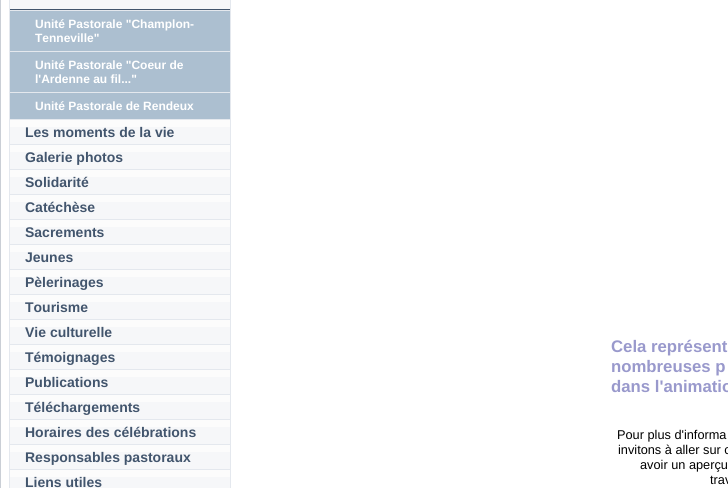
#include <cairo.h>
#include <math.h>
#include <stddef.h>


static void set_color(cairo_t *cr, unsigned color) {
    cairo_set_source_rgb(cr, (color >> 16) / 255.0, (color >> 8 & 255) / 255.0, (color & 255) / 255.0);
}

static void draw_text(cairo_t *cr, double x, double y, const char *s, const char *family, double size, int italic, int bold, unsigned color) {
    cairo_select_font_face(cr, family, italic ? CAIRO_FONT_SLANT_ITALIC : CAIRO_FONT_SLANT_NORMAL,
        bold ? CAIRO_FONT_WEIGHT_BOLD : CAIRO_FONT_WEIGHT_NORMAL);
    cairo_set_font_size(cr, size);
    set_color(cr, color);
    cairo_move_to(cr, x, y);
    cairo_show_text(cr, s);
}

static void fill_rect(cairo_t *cr, double x, double y, double w, double h, unsigned color) {
    set_color(cr, color);
    cairo_rectangle(cr, x, y, w, h);
    cairo_fill(cr);
}

int main(void) {
    cairo_surface_t *surface = cairo_image_surface_create(CAIRO_FORMAT_RGB24, 728, 488);
    cairo_t *cr = cairo_create(surface);
    cairo_font_options_t *options = cairo_font_options_create();
    cairo_font_options_set_hint_metrics(options, CAIRO_HINT_METRICS_OFF);
    cairo_font_options_set_hint_style(options, CAIRO_HINT_STYLE_NONE);
    cairo_set_font_options(cr, options);
    cairo_set_miter_limit(cr, 4);
    set_color(cr, 0xFFFFFF);
    cairo_paint(cr);
    fill_rect(cr, 0, 0, 1, 488, 0xCACFD6);
    fill_rect(cr, 230, 0, 1, 488, 0xE4E8EE);
    fill_rect(cr, 9, 0, 1, 488, 0xE4E8EE);
    fill_rect(cr, 10, 0, 220, 9, 0xF6F7F9);
    fill_rect(cr, 10, 9, 220, 1, 0x42556D);
    fill_rect(cr, 10, 11, 220, 40, 0xACBFD0);
    fill_rect(cr, 10, 10, 220, 1, 0xE4E8EE);
    draw_text(cr, 35, 28, "Unité Pastorale \"Champlon-", "Liberation Sans", 12, 0, 1, 0xFFFFFF);
    draw_text(cr, 35, 42, "Tenneville\"", "Liberation Sans", 12, 0, 1, 0xFFFFFF);
    fill_rect(cr, 10, 52, 220, 40, 0xACBFD0);
    fill_rect(cr, 10, 51, 220, 1, 0xE4E8EE);
    draw_text(cr, 35, 69, "Unité Pastorale \"Coeur de", "Liberation Sans", 12, 0, 1, 0xFFFFFF);
    draw_text(cr, 35, 83, "l'Ardenne au fil...\"", "Liberation Sans", 12, 0, 1, 0xFFFFFF);
    fill_rect(cr, 10, 93, 220, 26, 0xACBFD0);
    fill_rect(cr, 10, 92, 220, 1, 0xE4E8EE);
    draw_text(cr, 35, 110, "Unité Pastorale de Rendeux", "Liberation Sans", 12, 0, 1, 0xFFFFFF);
    fill_rect(cr, 10, 127, 220, 17, 0xF6F7F9);
    fill_rect(cr, 10, 120, 220, 7, 0xFCFCFC);
    fill_rect(cr, 10, 119, 220, 1, 0xE4E8EE);
    draw_text(cr, 25, 137, "Les moments de la vie", "Liberation Sans", 14, 0, 1, 0x42556D);
    fill_rect(cr, 10, 152, 220, 17, 0xF6F7F9);
    fill_rect(cr, 10, 145, 220, 7, 0xFCFCFC);
    fill_rect(cr, 10, 144, 220, 1, 0xE4E8EE);
    draw_text(cr, 25, 162, "Galerie photos", "Liberation Sans", 14, 0, 1, 0x42556D);
    fill_rect(cr, 10, 177, 220, 17, 0xF6F7F9);
    fill_rect(cr, 10, 170, 220, 7, 0xFCFCFC);
    fill_rect(cr, 10, 169, 220, 1, 0xE4E8EE);
    draw_text(cr, 25, 187, "Solidarité", "Liberation Sans", 14, 0, 1, 0x42556D);
    fill_rect(cr, 10, 202, 220, 17, 0xF6F7F9);
    fill_rect(cr, 10, 195, 220, 7, 0xFCFCFC);
    fill_rect(cr, 10, 194, 220, 1, 0xE4E8EE);
    draw_text(cr, 25, 212, "Catéchèse", "Liberation Sans", 14, 0, 1, 0x42556D);
    fill_rect(cr, 10, 227, 220, 17, 0xF6F7F9);
    fill_rect(cr, 10, 220, 220, 7, 0xFCFCFC);
    fill_rect(cr, 10, 219, 220, 1, 0xE4E8EE);
    draw_text(cr, 25, 237, "Sacrements", "Liberation Sans", 14, 0, 1, 0x42556D);
    fill_rect(cr, 10, 252, 220, 17, 0xF6F7F9);
    fill_rect(cr, 10, 245, 220, 7, 0xFCFCFC);
    fill_rect(cr, 10, 244, 220, 1, 0xE4E8EE);
    draw_text(cr, 25, 262, "Jeunes", "Liberation Sans", 14, 0, 1, 0x42556D);
    fill_rect(cr, 10, 277, 220, 17, 0xF6F7F9);
    fill_rect(cr, 10, 270, 220, 7, 0xFCFCFC);
    fill_rect(cr, 10, 269, 220, 1, 0xE4E8EE);
    draw_text(cr, 25, 287, "Pèlerinages", "Liberation Sans", 14, 0, 1, 0x42556D);
    fill_rect(cr, 10, 302, 220, 17, 0xF6F7F9);
    fill_rect(cr, 10, 295, 220, 7, 0xFCFCFC);
    fill_rect(cr, 10, 294, 220, 1, 0xE4E8EE);
    draw_text(cr, 25, 312, "Tourisme", "Liberation Sans", 14, 0, 1, 0x42556D);
    fill_rect(cr, 10, 327, 220, 17, 0xF6F7F9);
    fill_rect(cr, 10, 320, 220, 7, 0xFCFCFC);
    fill_rect(cr, 10, 319, 220, 1, 0xE4E8EE);
    draw_text(cr, 25, 337, "Vie culturelle", "Liberation Sans", 14, 0, 1, 0x42556D);
    fill_rect(cr, 10, 352, 220, 17, 0xF6F7F9);
    fill_rect(cr, 10, 345, 220, 7, 0xFCFCFC);
    fill_rect(cr, 10, 344, 220, 1, 0xE4E8EE);
    draw_text(cr, 25, 362, "Témoignages", "Liberation Sans", 14, 0, 1, 0x42556D);
    fill_rect(cr, 10, 377, 220, 17, 0xF6F7F9);
    fill_rect(cr, 10, 370, 220, 7, 0xFCFCFC);
    fill_rect(cr, 10, 369, 220, 1, 0xE4E8EE);
    draw_text(cr, 25, 387, "Publications", "Liberation Sans", 14, 0, 1, 0x42556D);
    fill_rect(cr, 10, 402, 220, 17, 0xF6F7F9);
    fill_rect(cr, 10, 395, 220, 7, 0xFCFCFC);
    fill_rect(cr, 10, 394, 220, 1, 0xE4E8EE);
    draw_text(cr, 25, 412, "Téléchargements", "Liberation Sans", 14, 0, 1, 0x42556D);
    fill_rect(cr, 10, 427, 220, 17, 0xF6F7F9);
    fill_rect(cr, 10, 420, 220, 7, 0xFCFCFC);
    fill_rect(cr, 10, 419, 220, 1, 0xE4E8EE);
    draw_text(cr, 25, 437, "Horaires des célébrations", "Liberation Sans", 14, 0, 1, 0x42556D);
    fill_rect(cr, 10, 452, 220, 17, 0xF6F7F9);
    fill_rect(cr, 10, 445, 220, 7, 0xFCFCFC);
    fill_rect(cr, 10, 444, 220, 1, 0xE4E8EE);
    draw_text(cr, 25, 462, "Responsables pastoraux", "Liberation Sans", 14, 0, 1, 0x42556D);
    fill_rect(cr, 10, 477, 220, 11, 0xF6F7F9);
    fill_rect(cr, 10, 470, 220, 7, 0xFCFCFC);
    fill_rect(cr, 10, 469, 220, 1, 0xE4E8EE);
    draw_text(cr, 25, 487, "Liens utiles", "Liberation Sans", 14, 0, 1, 0x42556D);
    draw_text(cr, 611, 352, "Cela représent", "Liberation Sans", 16.75, 0, 1, 0x9999CC);
    draw_text(cr, 611, 372, "nombreuses p", "Liberation Sans", 16.75, 0, 1, 0x9999CC);
    draw_text(cr, 611, 392, "dans l'animatio", "Liberation Sans", 16.75, 0, 1, 0x9999CC);
    draw_text(cr, 617, 439, "Pour plus d'informa", "Liberation Sans", 12.75, 0, 0, 0x000000);
    draw_text(cr, 618, 454, "invitons à aller sur c", "Liberation Sans", 12.75, 0, 0, 0x000000);
    draw_text(cr, 640, 469, "avoir un aperçu", "Liberation Sans", 12.75, 0, 0, 0x000000);
    draw_text(cr, 710, 484, "trav", "Liberation Sans", 12.75, 0, 0, 0x000000);
    cairo_surface_write_to_png(surface, "output.png");
    cairo_font_options_destroy(options);
    cairo_destroy(cr);
    cairo_surface_destroy(surface);
    return 0;
}
